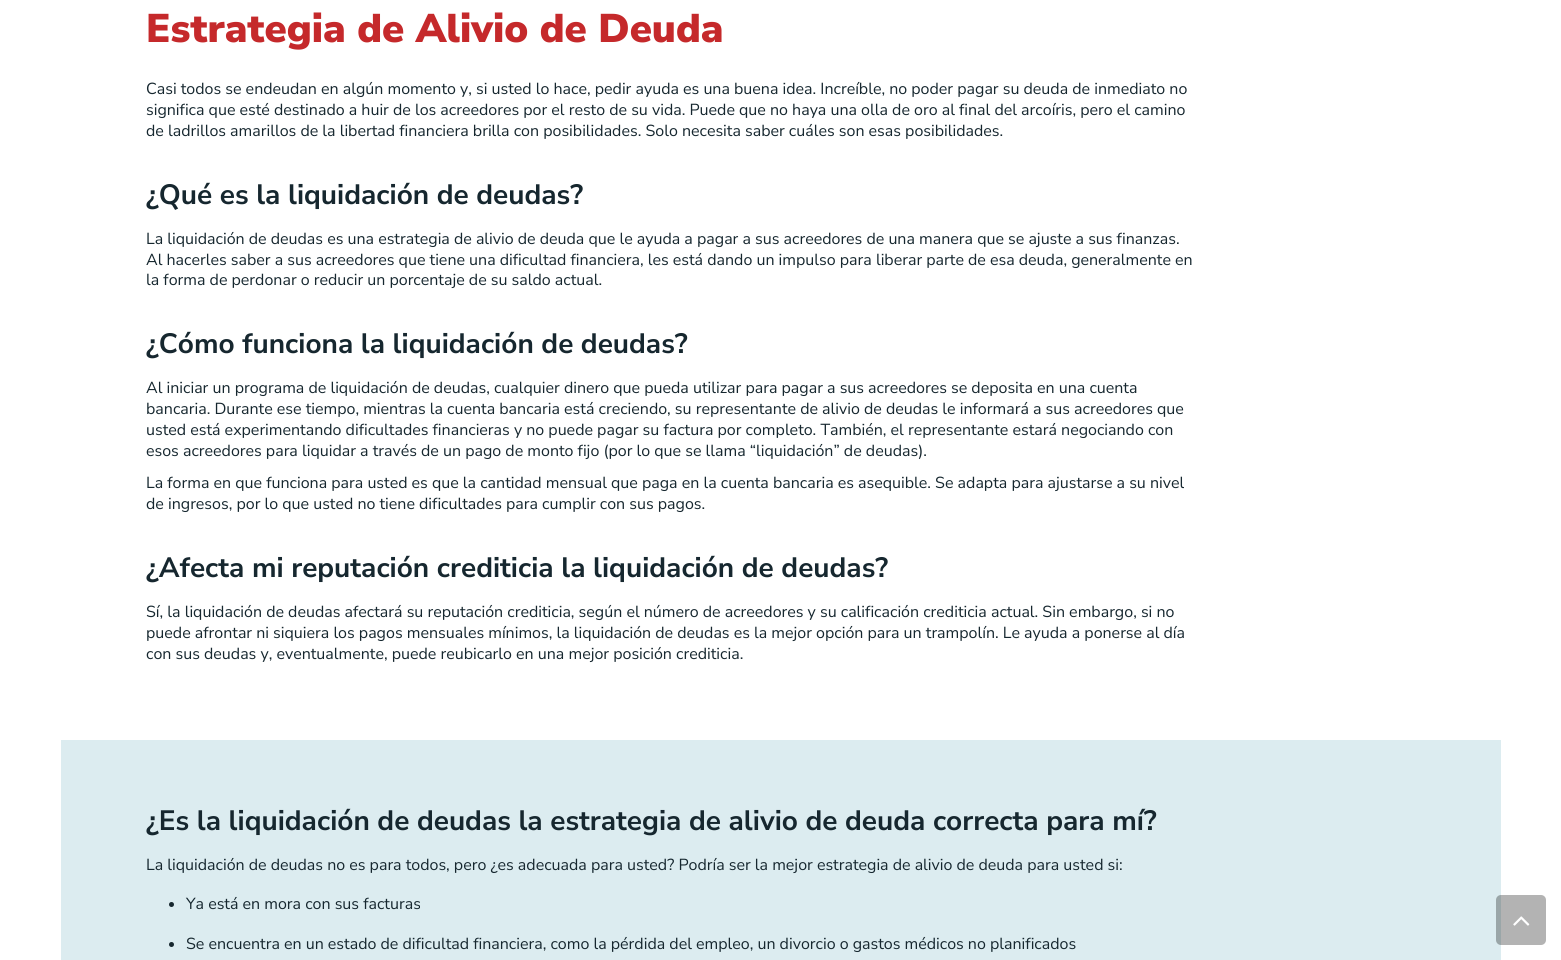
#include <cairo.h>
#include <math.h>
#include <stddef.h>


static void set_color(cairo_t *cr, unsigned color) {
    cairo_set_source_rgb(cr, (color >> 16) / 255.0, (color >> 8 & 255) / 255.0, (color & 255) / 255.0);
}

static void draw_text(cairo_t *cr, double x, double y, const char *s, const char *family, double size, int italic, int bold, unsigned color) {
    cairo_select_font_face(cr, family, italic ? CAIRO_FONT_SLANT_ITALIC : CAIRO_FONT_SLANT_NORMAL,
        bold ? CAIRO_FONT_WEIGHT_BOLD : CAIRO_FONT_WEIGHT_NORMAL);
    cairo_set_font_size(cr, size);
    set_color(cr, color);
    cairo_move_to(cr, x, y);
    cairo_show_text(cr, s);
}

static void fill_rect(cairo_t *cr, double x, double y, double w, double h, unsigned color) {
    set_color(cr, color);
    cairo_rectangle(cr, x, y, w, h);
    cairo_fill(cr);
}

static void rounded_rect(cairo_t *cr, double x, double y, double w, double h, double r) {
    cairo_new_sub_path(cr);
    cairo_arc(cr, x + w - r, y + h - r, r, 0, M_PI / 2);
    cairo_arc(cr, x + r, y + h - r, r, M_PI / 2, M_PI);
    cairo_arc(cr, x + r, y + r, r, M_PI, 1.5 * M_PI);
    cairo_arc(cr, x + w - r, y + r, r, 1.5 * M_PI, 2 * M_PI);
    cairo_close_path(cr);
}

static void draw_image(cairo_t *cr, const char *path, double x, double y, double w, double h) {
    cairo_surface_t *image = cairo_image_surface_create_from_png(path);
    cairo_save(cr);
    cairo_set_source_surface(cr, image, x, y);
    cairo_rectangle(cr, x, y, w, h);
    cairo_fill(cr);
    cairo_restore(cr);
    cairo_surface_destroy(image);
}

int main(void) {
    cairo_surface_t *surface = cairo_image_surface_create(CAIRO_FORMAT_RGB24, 1561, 960);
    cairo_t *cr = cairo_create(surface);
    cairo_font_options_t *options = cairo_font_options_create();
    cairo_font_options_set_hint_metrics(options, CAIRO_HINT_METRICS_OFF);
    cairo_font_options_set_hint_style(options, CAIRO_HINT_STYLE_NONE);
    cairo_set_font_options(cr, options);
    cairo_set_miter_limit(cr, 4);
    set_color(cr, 0xFFFFFF);
    cairo_paint(cr);
    draw_text(cr, 146, 42, "Estrategia de Alivio de Deuda", "Nunito Sans Black", 40, 0, 0, 0xC5292B);
    draw_text(cr, 146, 94, "Casi todos se endeudan en algún momento y, si usted lo hace, pedir ayuda es una buena idea. Increíble, no poder pagar su deuda de inmediato no", "Nunito Sans", 16, 0, 0, 0x16272F);
    draw_text(cr, 146, 115, "significa que esté destinado a huir de los acreedores por el resto de su vida. Puede que no haya una olla de oro al final del arcoíris, pero el camino", "Nunito Sans", 16, 0, 0, 0x16272F);
    draw_text(cr, 146, 136, "de ladrillos amarillos de la libertad financiera brilla con posibilidades. Solo necesita saber cuáles son esas posibilidades.", "Nunito Sans", 16, 0, 0, 0x16272F);
    draw_text(cr, 146, 204, "¿Qué es la liquidación de deudas?", "Nunito Sans", 28, 0, 1, 0x16272F);
    draw_text(cr, 146, 244, "La liquidación de deudas es una estrategia de alivio de deuda que le ayuda a pagar a sus acreedores de una manera que se ajuste a sus finanzas.", "Nunito Sans", 16, 0, 0, 0x16272F);
    draw_text(cr, 146, 265, "Al hacerles saber a sus acreedores que tiene una dificultad financiera, les está dando un impulso para liberar parte de esa deuda, generalmente en", "Nunito Sans", 16, 0, 0, 0x16272F);
    draw_text(cr, 146, 285, "la forma de perdonar o reducir un porcentaje de su saldo actual.", "Nunito Sans", 16, 0, 0, 0x16272F);
    draw_text(cr, 146, 353, "¿Cómo funciona la liquidación de deudas?", "Nunito Sans", 28, 0, 1, 0x16272F);
    draw_text(cr, 146, 393, "Al iniciar un programa de liquidación de deudas, cualquier dinero que pueda utilizar para pagar a sus acreedores se deposita en una cuenta", "Nunito Sans", 16, 0, 0, 0x16272F);
    draw_text(cr, 146, 414, "bancaria. Durante ese tiempo, mientras la cuenta bancaria está creciendo, su representante de alivio de deudas le informará a sus acreedores que", "Nunito Sans", 16, 0, 0, 0x16272F);
    draw_text(cr, 146, 435, "usted está experimentando dificultades financieras y no puede pagar su factura por completo. También, el representante estará negociando con", "Nunito Sans", 16, 0, 0, 0x16272F);
    draw_text(cr, 146, 456, "esos acreedores para liquidar a través de un pago de monto fijo (por lo que se llama “liquidación” de deudas).", "Nunito Sans", 16, 0, 0, 0x16272F);
    draw_text(cr, 146, 488, "La forma en que funciona para usted es que la cantidad mensual que paga en la cuenta bancaria es asequible. Se adapta para ajustarse a su nivel", "Nunito Sans", 16, 0, 0, 0x16272F);
    draw_text(cr, 146, 509, "de ingresos, por lo que usted no tiene dificultades para cumplir con sus pagos.", "Nunito Sans", 16, 0, 0, 0x16272F);
    draw_text(cr, 146, 577, "¿Afecta mi reputación crediticia la liquidación de deudas?", "Nunito Sans", 28, 0, 1, 0x16272F);
    draw_text(cr, 146, 617, "Sí, la liquidación de deudas afectará su reputación crediticia, según el número de acreedores y su calificación crediticia actual. Sin embargo, si no", "Nunito Sans", 16, 0, 0, 0x16272F);
    draw_text(cr, 146, 638, "puede afrontar ni siquiera los pagos mensuales mínimos, la liquidación de deudas es la mejor opción para un trampolín. Le ayuda a ponerse al día", "Nunito Sans", 16, 0, 0, 0x16272F);
    draw_text(cr, 146, 659, "con sus deudas y, eventualmente, puede reubicarlo en una mejor posición crediticia.", "Nunito Sans", 16, 0, 0, 0x16272F);
    fill_rect(cr, 61, 740, 1440, 220, 0xDCECF0);
    draw_text(cr, 146, 830, "¿Es la liquidación de deudas la estrategia de alivio de deuda correcta para mí?", "Nunito Sans", 28, 0, 1, 0x16272F);
    draw_text(cr, 146, 870, "La liquidación de deudas no es para todos, pero ¿es adecuada para usted? Podría ser la mejor estrategia de alivio de deuda para usted si:", "Nunito Sans", 16, 0, 0, 0x16272F);
    cairo_new_path(cr);
    cairo_arc(cr, 171.5, 904.5, 2.5, 0, 2 * M_PI);
    cairo_fill(cr);
    draw_text(cr, 186, 909, "Ya está en mora con sus facturas", "Nunito Sans", 16, 0, 0, 0x16272F);
    cairo_new_path(cr);
    cairo_arc(cr, 171.5, 944.5, 2.5, 0, 2 * M_PI);
    cairo_fill(cr);
    draw_text(cr, 186, 949, "Se encuentra en un estado de dificultad financiera, como la pérdida del empleo, un divorcio o gastos médicos no planificados", "Nunito Sans", 16, 0, 0, 0x16272F);
    cairo_set_source_rgba(cr, 0, 0, 0, 0.3);
    rounded_rect(cr, 1496, 895, 50, 50, 5);
    cairo_fill(cr);
    draw_image(cr, "assets/img1.png", 1513, 916, 17, 10);
    cairo_surface_write_to_png(surface, "output.png");
    cairo_font_options_destroy(options);
    cairo_destroy(cr);
    cairo_surface_destroy(surface);
    return 0;
}
